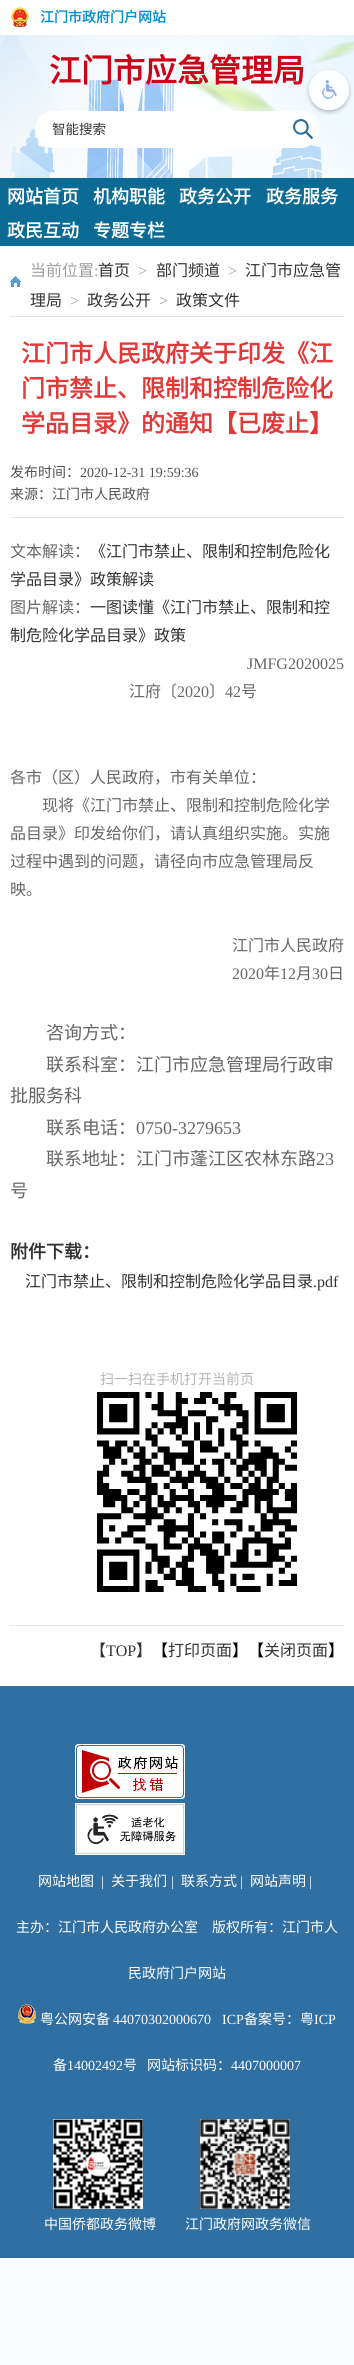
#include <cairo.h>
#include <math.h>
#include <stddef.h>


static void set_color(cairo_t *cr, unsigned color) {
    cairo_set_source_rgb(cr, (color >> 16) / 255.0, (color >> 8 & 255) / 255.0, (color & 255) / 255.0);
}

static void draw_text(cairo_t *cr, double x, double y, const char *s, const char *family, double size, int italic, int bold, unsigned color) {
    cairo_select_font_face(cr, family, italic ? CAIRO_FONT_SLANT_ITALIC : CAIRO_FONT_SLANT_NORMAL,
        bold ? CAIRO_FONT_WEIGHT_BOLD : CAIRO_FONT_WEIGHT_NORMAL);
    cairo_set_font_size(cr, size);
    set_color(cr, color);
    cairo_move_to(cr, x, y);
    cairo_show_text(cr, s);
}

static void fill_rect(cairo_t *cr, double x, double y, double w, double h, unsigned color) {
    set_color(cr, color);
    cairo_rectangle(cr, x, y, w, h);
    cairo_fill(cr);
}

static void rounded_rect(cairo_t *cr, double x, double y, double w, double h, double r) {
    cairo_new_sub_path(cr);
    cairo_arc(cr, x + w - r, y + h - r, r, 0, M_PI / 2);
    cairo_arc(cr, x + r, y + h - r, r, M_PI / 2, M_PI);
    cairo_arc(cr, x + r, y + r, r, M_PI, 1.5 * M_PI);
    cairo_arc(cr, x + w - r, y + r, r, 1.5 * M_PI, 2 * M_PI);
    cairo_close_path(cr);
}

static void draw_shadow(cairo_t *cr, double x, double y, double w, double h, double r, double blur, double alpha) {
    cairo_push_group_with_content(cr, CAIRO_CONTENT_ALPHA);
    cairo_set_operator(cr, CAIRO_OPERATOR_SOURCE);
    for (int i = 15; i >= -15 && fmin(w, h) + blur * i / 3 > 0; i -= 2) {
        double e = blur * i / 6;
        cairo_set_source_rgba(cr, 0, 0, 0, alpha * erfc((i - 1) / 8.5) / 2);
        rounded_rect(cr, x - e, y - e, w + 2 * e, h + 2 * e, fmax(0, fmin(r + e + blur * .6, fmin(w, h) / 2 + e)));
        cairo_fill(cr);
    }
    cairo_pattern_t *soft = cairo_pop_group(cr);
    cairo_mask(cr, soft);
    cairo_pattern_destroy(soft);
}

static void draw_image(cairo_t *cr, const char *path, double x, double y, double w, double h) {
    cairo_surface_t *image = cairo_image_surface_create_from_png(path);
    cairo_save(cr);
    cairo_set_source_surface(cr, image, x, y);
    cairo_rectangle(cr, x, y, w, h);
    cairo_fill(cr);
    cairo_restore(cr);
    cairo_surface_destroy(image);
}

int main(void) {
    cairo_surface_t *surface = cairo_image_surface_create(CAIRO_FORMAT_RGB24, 354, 2365);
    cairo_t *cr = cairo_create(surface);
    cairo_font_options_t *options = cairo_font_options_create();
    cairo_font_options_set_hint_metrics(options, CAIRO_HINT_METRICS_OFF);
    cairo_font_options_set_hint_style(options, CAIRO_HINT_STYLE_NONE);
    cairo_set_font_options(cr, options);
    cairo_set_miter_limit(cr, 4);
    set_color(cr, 0xF9FBFD);
    cairo_paint(cr);
    draw_image(cr, "assets/img1.png", 0, 35, 354, 143);
    fill_rect(cr, 0, 0, 354, 35, 0xFFFFFF);
    draw_image(cr, "assets/img2.png", 11, 7, 18, 20);
    draw_text(cr, 40, 22, "江门市政府门户网站", "Noto Sans CJK SC", 14, 0, 1, 0x0090D3);
    draw_text(cr, 49, 82, "江门市应急管理局", "Noto Sans CJK SC", 32, 0, 1, 0xCC0016);
    set_color(cr, 0xFFFFFF);
    rounded_rect(cr, 35, 111, 284, 37, 18.5);
    cairo_fill(cr);
    draw_text(cr, 52, 134, "智能搜索", "Noto Sans CJK SC", 13.5, 0, 0, 0x333333);
    draw_image(cr, "assets/img3.png", 293, 119, 20, 20);
    cairo_save(cr);
    cairo_set_fill_rule(cr, CAIRO_FILL_RULE_EVEN_ODD);
    cairo_new_path(cr);
    cairo_move_to(cr, 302, 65);
    cairo_line_to(cr, 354, 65);
    cairo_line_to(cr, 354, 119);
    cairo_line_to(cr, 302, 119);
    cairo_close_path(cr);
    cairo_move_to(cr, 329, 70);
    cairo_curve_to(cr, 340, 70, 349, 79, 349, 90);
    cairo_curve_to(cr, 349, 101, 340, 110, 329, 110);
    cairo_curve_to(cr, 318, 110, 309, 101, 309, 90);
    cairo_curve_to(cr, 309, 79, 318, 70, 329, 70);
    cairo_close_path(cr);
    cairo_clip(cr);
    set_color(cr, 0x000000);
    draw_shadow(cr, 309, 72, 40, 40, 20, 2, 0.25);
    cairo_restore(cr);
    cairo_set_source_rgba(cr, 1, 1, 1, 0.9);
    cairo_arc(cr, 329, 90, 20, 0, 2 * M_PI);
    cairo_fill(cr);
    draw_image(cr, "assets/img4.png", 322, 80, 15, 19);
    fill_rect(cr, 0, 178, 354, 68, 0x0B6B95);
    draw_text(cr, 7, 203, "网站首页", "Noto Sans CJK SC", 18, 0, 1, 0xFFFFFF);
    draw_text(cr, 93, 203, "机构职能", "Noto Sans CJK SC", 18, 0, 1, 0xFFFFFF);
    draw_text(cr, 179, 203, "政务公开", "Noto Sans CJK SC", 18, 0, 1, 0xFFFFFF);
    draw_text(cr, 266, 203, "政务服务", "Noto Sans CJK SC", 18, 0, 1, 0xFFFFFF);
    draw_text(cr, 7, 237, "政民互动", "Noto Sans CJK SC", 18, 0, 1, 0xFFFFFF);
    draw_text(cr, 93, 237, "专题专栏", "Noto Sans CJK SC", 18, 0, 1, 0xFFFFFF);
    fill_rect(cr, 0, 246, 354, 1440, 0xFFFFFF);
    fill_rect(cr, 10, 316, 334, 1, 0xE5E5E5);
    draw_image(cr, "assets/img5.png", 10, 276, 11, 11);
    draw_text(cr, 30, 276, "当前位置", "Noto Sans CJK SC", 16, 0, 0, 0x9E9E9E);
    draw_text(cr, 94, 276, ":", "Liberation Serif", 16, 0, 0, 0x9E9E9E);
    draw_text(cr, 98, 276, "首页", "Noto Sans CJK SC", 16, 0, 0, 0x333333);
    draw_text(cr, 138, 276, ">", "Liberation Serif", 16, 0, 0, 0x9E9E9E);
    draw_text(cr, 156, 276, "部门频道", "Noto Sans CJK SC", 16, 0, 0, 0x333333);
    draw_text(cr, 228, 276, ">", "Liberation Serif", 16, 0, 0, 0x9E9E9E);
    draw_text(cr, 245, 276, "江门市应急管", "Noto Sans CJK SC", 16, 0, 0, 0x333333);
    draw_text(cr, 30, 306, "理局", "Noto Sans CJK SC", 16, 0, 0, 0x333333);
    draw_text(cr, 70, 306, ">", "Liberation Serif", 16, 0, 0, 0x9E9E9E);
    draw_text(cr, 87, 306, "政务公开", "Noto Sans CJK SC", 16, 0, 0, 0x333333);
    draw_text(cr, 159, 306, ">", "Liberation Serif", 16, 0, 0, 0x9E9E9E);
    draw_text(cr, 176, 306, "政策文件", "Noto Sans CJK SC", 16, 0, 0, 0x333333);
    draw_text(cr, 21, 362, "江门市人民政府关于印发《江", "Noto Sans CJK SC", 24, 0, 1, 0xDF3A39);
    draw_text(cr, 21, 397, "门市禁止、限制和控制危险化", "Noto Sans CJK SC", 24, 0, 1, 0xDF3A39);
    draw_text(cr, 21, 432, "学品目录》的通知【已废止】", "Noto Sans CJK SC", 24, 0, 1, 0xDF3A39);
    fill_rect(cr, 10, 517, 334, 1, 0xE5E5E5);
    draw_text(cr, 10, 477, "发布时间：", "Noto Sans CJK SC", 14, 0, 0, 0x525252);
    draw_text(cr, 80, 477, "2020-12-31 19:59:36", "Liberation Serif", 14, 0, 0, 0x525252);
    draw_text(cr, 10, 499, "来源：江门市人民政府", "Noto Sans CJK SC", 14, 0, 0, 0x525252);
    draw_text(cr, 10, 557, "文本解读：", "Noto Sans CJK SC", 16, 0, 0, 0x666666);
    draw_text(cr, 90, 557, "《江门市禁止、限制和控制危险化", "Noto Sans CJK SC", 16, 0, 0, 0x333333);
    draw_text(cr, 10, 585, "学品目录》政策解读", "Noto Sans CJK SC", 16, 0, 0, 0x333333);
    draw_text(cr, 10, 613, "图片解读：", "Noto Sans CJK SC", 16, 0, 0, 0x666666);
    draw_text(cr, 90, 613, "一图读懂《江门市禁止、限制和控", "Noto Sans CJK SC", 16, 0, 0, 0x333333);
    draw_text(cr, 10, 641, "制危险化学品目录》政策", "Noto Sans CJK SC", 16, 0, 0, 0x333333);
    draw_text(cr, 247, 669, "JMFG2020025", "Liberation Serif", 16, 0, 0, 0x666666);
    draw_text(cr, 129, 697, "江府〔", "Noto Sans CJK SC", 16, 0, 0, 0x666666);
    draw_text(cr, 177, 697, "2020", "Liberation Serif", 16, 0, 0, 0x666666);
    draw_text(cr, 209, 697, "〕", "Noto Sans CJK SC", 16, 0, 0, 0x666666);
    draw_text(cr, 225, 697, "42", "Liberation Serif", 16, 0, 0, 0x666666);
    draw_text(cr, 241, 697, "号", "Noto Sans CJK SC", 16, 0, 0, 0x666666);
    draw_text(cr, 10, 783, "各市（区）人民政府，市有关单位：", "Noto Sans CJK SC", 16, 0, 0, 0x666666);
    draw_text(cr, 42, 811, "现将《江门市禁止、限制和控制危险化学", "Noto Sans CJK SC", 16, 0, 0, 0x666666);
    draw_text(cr, 10, 839, "品目录》印发给你们，请认真组织实施。实施", "Noto Sans CJK SC", 16, 0, 0, 0x666666);
    draw_text(cr, 10, 867, "过程中遇到的问题，请径向市应急管理局反", "Noto Sans CJK SC", 16, 0, 0, 0x666666);
    draw_text(cr, 10, 895, "映。", "Noto Sans CJK SC", 16, 0, 0, 0x666666);
    draw_text(cr, 232, 951, "江门市人民政府", "Noto Sans CJK SC", 16, 0, 0, 0x666666);
    draw_text(cr, 232, 979, "2020", "Liberation Serif", 16, 0, 0, 0x666666);
    draw_text(cr, 264, 979, "年", "Noto Sans CJK SC", 16, 0, 0, 0x666666);
    draw_text(cr, 280, 979, "12", "Liberation Serif", 16, 0, 0, 0x666666);
    draw_text(cr, 296, 979, "月", "Noto Sans CJK SC", 16, 0, 0, 0x666666);
    draw_text(cr, 312, 979, "30", "Liberation Serif", 16, 0, 0, 0x666666);
    draw_text(cr, 328, 979, "日", "Noto Sans CJK SC", 16, 0, 0, 0x666666);
    draw_text(cr, 46, 1039, "咨询方式：", "Noto Sans CJK SC", 18, 0, 0, 0x666666);
    draw_text(cr, 46, 1071, "联系科室：江门市应急管理局行政审", "Noto Sans CJK SC", 18, 0, 0, 0x666666);
    draw_text(cr, 10, 1102, "批服务科", "Noto Sans CJK SC", 18, 0, 0, 0x666666);
    draw_text(cr, 46, 1134, "联系电话：", "Noto Sans CJK SC", 18, 0, 0, 0x666666);
    draw_text(cr, 136, 1134, "0750-3279653", "Liberation Serif", 18, 0, 0, 0x666666);
    draw_text(cr, 46, 1165, "联系地址：江门市蓬江区农林东路", "Noto Sans CJK SC", 18, 0, 0, 0x666666);
    draw_text(cr, 316, 1165, "23", "Liberation Serif", 18, 0, 0, 0x666666);
    draw_text(cr, 10, 1197, "号", "Noto Sans CJK SC", 18, 0, 0, 0x666666);
    draw_text(cr, 10, 1258, "附件下载：", "Noto Sans CJK SC", 18, 0, 1, 0x333333);
    draw_text(cr, 25, 1287, "江门市禁止、限制和控制危险化学品目录", "Noto Sans CJK SC", 16, 0, 0, 0x333333);
    draw_text(cr, 313, 1287, ".pdf", "Liberation Serif", 16, 0, 0, 0x333333);
    draw_text(cr, 100, 1384, "扫一扫在手机打开当前页", "Noto Sans CJK SC", 14, 0, 0, 0xB5B5B5);
    draw_image(cr, "assets/img6.png", 97, 1392, 200, 200);
    fill_rect(cr, 10, 1625, 334, 1, 0xE5E5E5);
    draw_text(cr, 90, 1656, "【", "Noto Sans CJK SC", 16, 0, 0, 0x333333);
    draw_text(cr, 106, 1656, "TOP", "Liberation Serif", 16, 0, 0, 0x333333);
    draw_text(cr, 136, 1656, "】", "Noto Sans CJK SC", 16, 0, 0, 0x333333);
    draw_text(cr, 152, 1656, "【", "Noto Sans CJK SC", 16, 0, 0, 0x000000);
    draw_text(cr, 168, 1656, "打印页面", "Noto Sans CJK SC", 16, 0, 0, 0x333333);
    draw_text(cr, 232, 1656, "】【", "Noto Sans CJK SC", 16, 0, 0, 0x000000);
    draw_text(cr, 264, 1656, "关闭页面", "Noto Sans CJK SC", 16, 0, 0, 0x333333);
    draw_text(cr, 328, 1656, "】", "Noto Sans CJK SC", 16, 0, 0, 0x000000);
    fill_rect(cr, 0, 1686, 354, 572, 0x306FA2);
    draw_image(cr, "assets/img7.png", 75, 1744, 110, 55);
    draw_image(cr, "assets/img8.png", 75, 1803, 110, 52);
    draw_text(cr, 38, 1886, "网站地图", "Noto Sans CJK SC", 14, 0, 0, 0xFFFFFF);
    draw_text(cr, 101, 1886, "|", "Liberation Serif", 14, 0, 0, 0xFFFFFF);
    draw_text(cr, 111, 1886, "关于我们", "Noto Sans CJK SC", 14, 0, 0, 0xFFFFFF);
    draw_text(cr, 171, 1886, "|", "Liberation Serif", 14, 0, 0, 0xFFFFFF);
    draw_text(cr, 181, 1886, "联系方式", "Noto Sans CJK SC", 14, 0, 0, 0xFFFFFF);
    draw_text(cr, 240, 1886, "|", "Liberation Serif", 14, 0, 0, 0xFFFFFF);
    draw_text(cr, 250, 1886, "网站声明", "Noto Sans CJK SC", 14, 0, 0, 0xFFFFFF);
    draw_text(cr, 309, 1886, "|", "Liberation Serif", 14, 0, 0, 0xFFFFFF);
    draw_text(cr, 16, 1932, "主办：江门市人民政府办公室", "Noto Sans CJK SC", 14, 0, 0, 0xFFFFFF);
    draw_text(cr, 212, 1932, "版权所有：江门市人", "Noto Sans CJK SC", 14, 0, 0, 0xFFFFFF);
    draw_text(cr, 128, 1978, "民政府门户网站", "Noto Sans CJK SC", 14, 0, 0, 0xFFFFFF);
    draw_image(cr, "assets/img9.png", 18, 2004, 18, 20);
    draw_text(cr, 40, 2024, "粤公网安备", "Noto Sans CJK SC", 14, 0, 0, 0xFFFFFF);
    draw_text(cr, 113, 2024, "44070302000670", "Liberation Serif", 14, 0, 0, 0xFFFFFF);
    draw_text(cr, 222, 2024, "ICP", "Liberation Serif", 14, 0, 0, 0xFFFFFF);
    draw_text(cr, 244, 2024, "备案号：粤", "Noto Sans CJK SC", 14, 0, 0, 0xFFFFFF);
    draw_text(cr, 314, 2024, "ICP", "Liberation Serif", 14, 0, 0, 0xFFFFFF);
    draw_text(cr, 53, 2070, "备", "Noto Sans CJK SC", 14, 0, 0, 0xFFFFFF);
    draw_text(cr, 67, 2070, "14002492", "Liberation Serif", 14, 0, 0, 0xFFFFFF);
    draw_text(cr, 123, 2070, "号", "Noto Sans CJK SC", 14, 0, 0, 0xFFFFFF);
    draw_text(cr, 147, 2070, "网站标识码：", "Noto Sans CJK SC", 14, 0, 0, 0xFFFFFF);
    draw_text(cr, 231, 2070, "4407000007", "Liberation Serif", 14, 0, 0, 0xFFFFFF);
    draw_image(cr, "assets/img10.png", 53, 2119, 90, 90);
    draw_text(cr, 44, 2229, "中国侨都政务微博", "Noto Sans CJK SC", 14, 0, 0, 0xFFFFFF);
    draw_image(cr, "assets/img11.png", 200, 2119, 90, 90);
    draw_text(cr, 185, 2229, "江门政府网政务微信", "Noto Sans CJK SC", 14, 0, 0, 0xFFFFFF);
    cairo_surface_write_to_png(surface, "output.png");
    cairo_font_options_destroy(options);
    cairo_destroy(cr);
    cairo_surface_destroy(surface);
    return 0;
}
